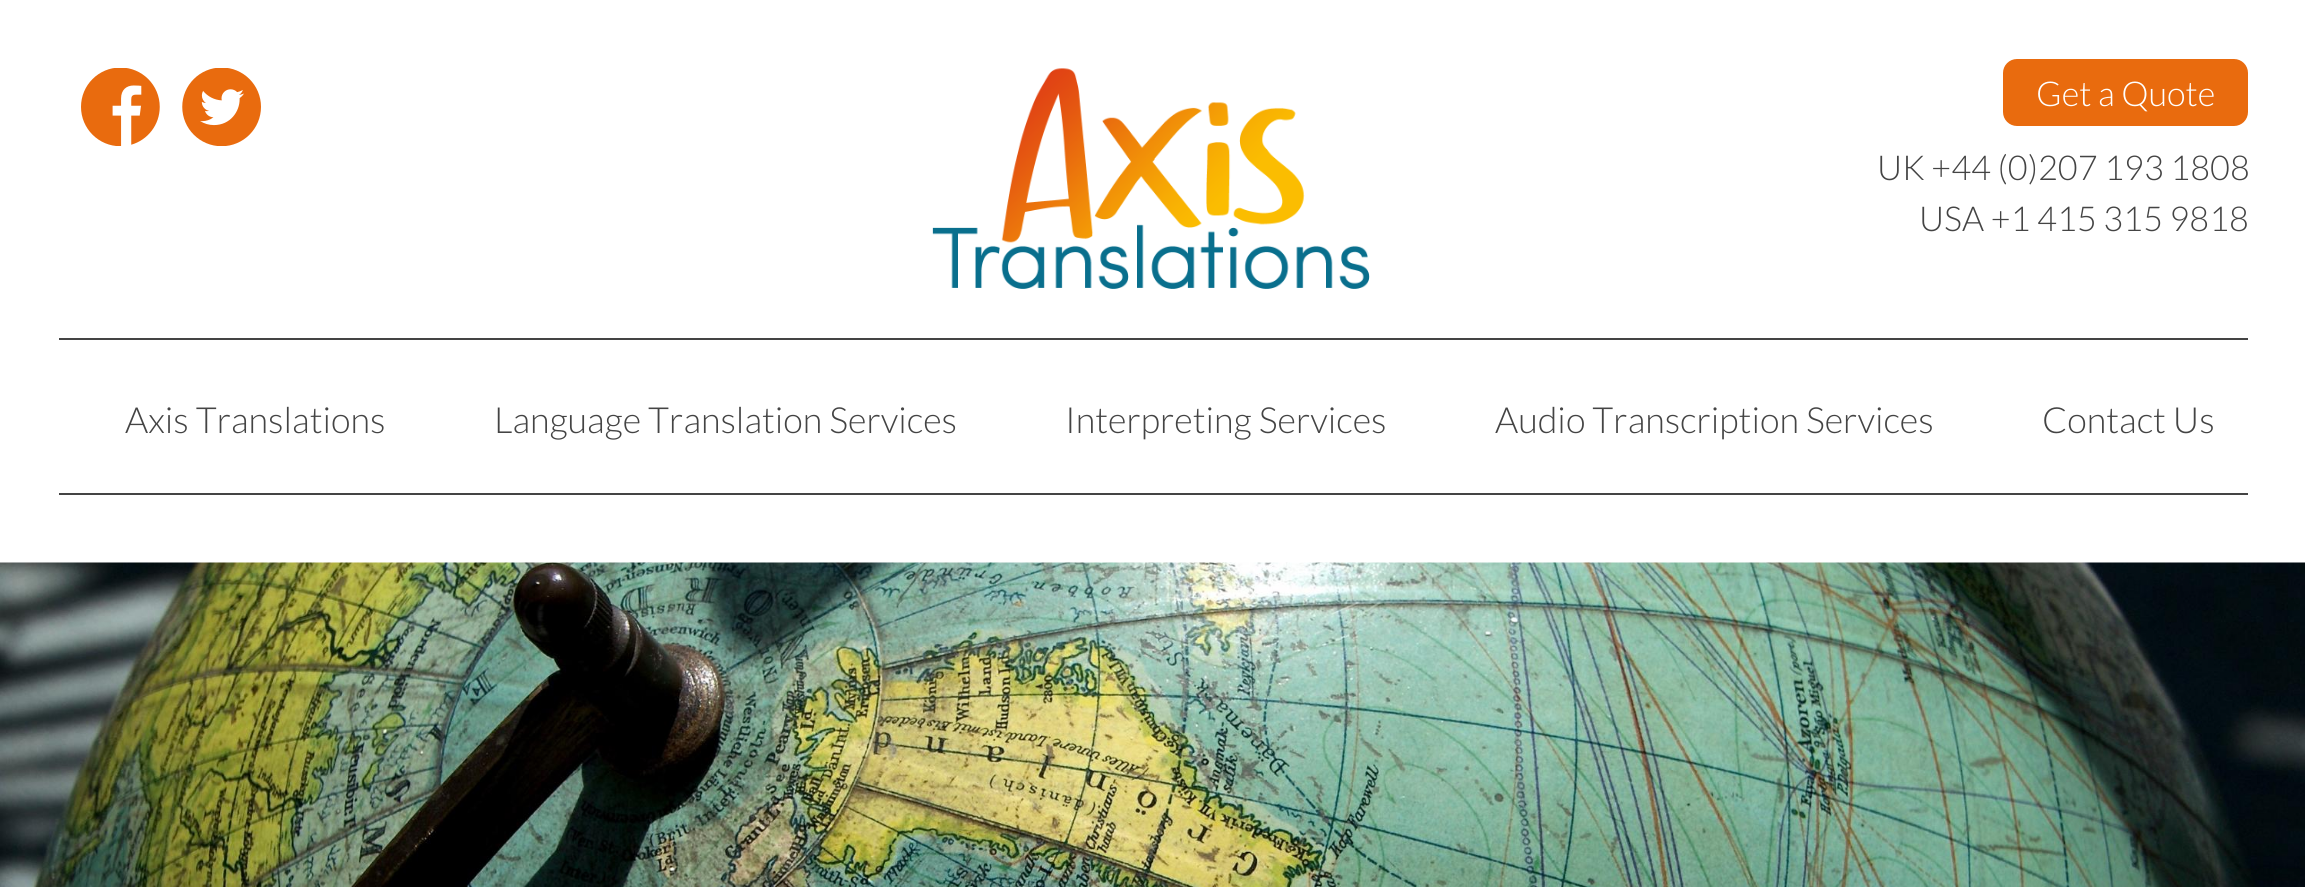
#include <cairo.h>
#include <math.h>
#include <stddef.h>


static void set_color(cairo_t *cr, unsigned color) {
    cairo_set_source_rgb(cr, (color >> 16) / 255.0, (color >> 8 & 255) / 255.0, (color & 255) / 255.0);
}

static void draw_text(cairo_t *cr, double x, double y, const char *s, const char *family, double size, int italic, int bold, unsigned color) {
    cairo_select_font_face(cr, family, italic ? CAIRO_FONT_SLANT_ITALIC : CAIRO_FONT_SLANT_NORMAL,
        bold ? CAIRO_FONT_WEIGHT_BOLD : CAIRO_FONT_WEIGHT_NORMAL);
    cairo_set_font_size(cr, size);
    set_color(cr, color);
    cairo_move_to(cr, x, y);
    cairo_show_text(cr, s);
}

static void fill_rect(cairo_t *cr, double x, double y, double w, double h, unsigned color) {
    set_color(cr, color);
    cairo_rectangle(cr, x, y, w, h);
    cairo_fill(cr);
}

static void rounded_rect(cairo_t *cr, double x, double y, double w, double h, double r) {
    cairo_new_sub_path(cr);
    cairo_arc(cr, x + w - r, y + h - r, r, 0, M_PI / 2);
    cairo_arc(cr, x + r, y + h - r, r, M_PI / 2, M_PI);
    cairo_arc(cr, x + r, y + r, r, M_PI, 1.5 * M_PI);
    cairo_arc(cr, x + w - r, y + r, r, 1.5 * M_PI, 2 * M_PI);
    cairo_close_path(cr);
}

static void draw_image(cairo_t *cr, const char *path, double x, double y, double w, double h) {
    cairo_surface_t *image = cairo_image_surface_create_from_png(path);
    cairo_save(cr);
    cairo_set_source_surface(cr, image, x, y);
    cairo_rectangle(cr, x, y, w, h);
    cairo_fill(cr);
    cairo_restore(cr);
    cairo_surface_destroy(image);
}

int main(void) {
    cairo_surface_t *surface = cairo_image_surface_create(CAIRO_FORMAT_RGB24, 2305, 887);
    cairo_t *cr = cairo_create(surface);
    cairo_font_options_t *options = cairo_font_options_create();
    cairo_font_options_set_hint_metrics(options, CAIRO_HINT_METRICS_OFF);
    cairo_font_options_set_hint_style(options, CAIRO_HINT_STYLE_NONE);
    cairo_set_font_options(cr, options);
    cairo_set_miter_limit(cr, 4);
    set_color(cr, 0xFFFFFF);
    cairo_paint(cr);
    draw_image(cr, "assets/img1.png", 81, 68, 79, 78);
    draw_image(cr, "assets/img2.png", 182, 68, 79, 78);
    draw_image(cr, "assets/img3.png", 932, 68, 438, 221);
    set_color(cr, 0xE96B0E);
    rounded_rect(cr, 2003, 59, 245, 67, 14);
    cairo_fill(cr);
    draw_text(cr, 2036, 106, "Get a Quote", "Lato Light", 34.25, 0, 0, 0xFFFFFF);
    draw_text(cr, 1877, 180, "UK +44 (0)207 193 1808", "Lato Light", 34.25, 0, 0, 0x444444);
    draw_text(cr, 1919, 231, "USA +1 415 315 9818", "Lato Light", 34.25, 0, 0, 0x444444);
    fill_rect(cr, 59, 338, 2189, 2, 0x444444);
    fill_rect(cr, 59, 493, 2189, 2, 0x444444);
    draw_text(cr, 125, 433, "Axis Translations", "Lato Light", 36, 0, 0, 0x444444);
    draw_text(cr, 494, 433, "Language Translation Services", "Lato Light", 36, 0, 0, 0x444444);
    draw_text(cr, 1065, 433, "Interpreting Services", "Lato Light", 36, 0, 0, 0x444444);
    draw_text(cr, 1495, 433, "Audio Transcription Services", "Lato Light", 36, 0, 0, 0x444444);
    draw_text(cr, 2042, 433, "Contact Us", "Lato Light", 36, 0, 0, 0x444444);
    draw_image(cr, "assets/img4.png", 0, 562, 2305, 325);
    cairo_surface_write_to_png(surface, "output.png");
    cairo_font_options_destroy(options);
    cairo_destroy(cr);
    cairo_surface_destroy(surface);
    return 0;
}
